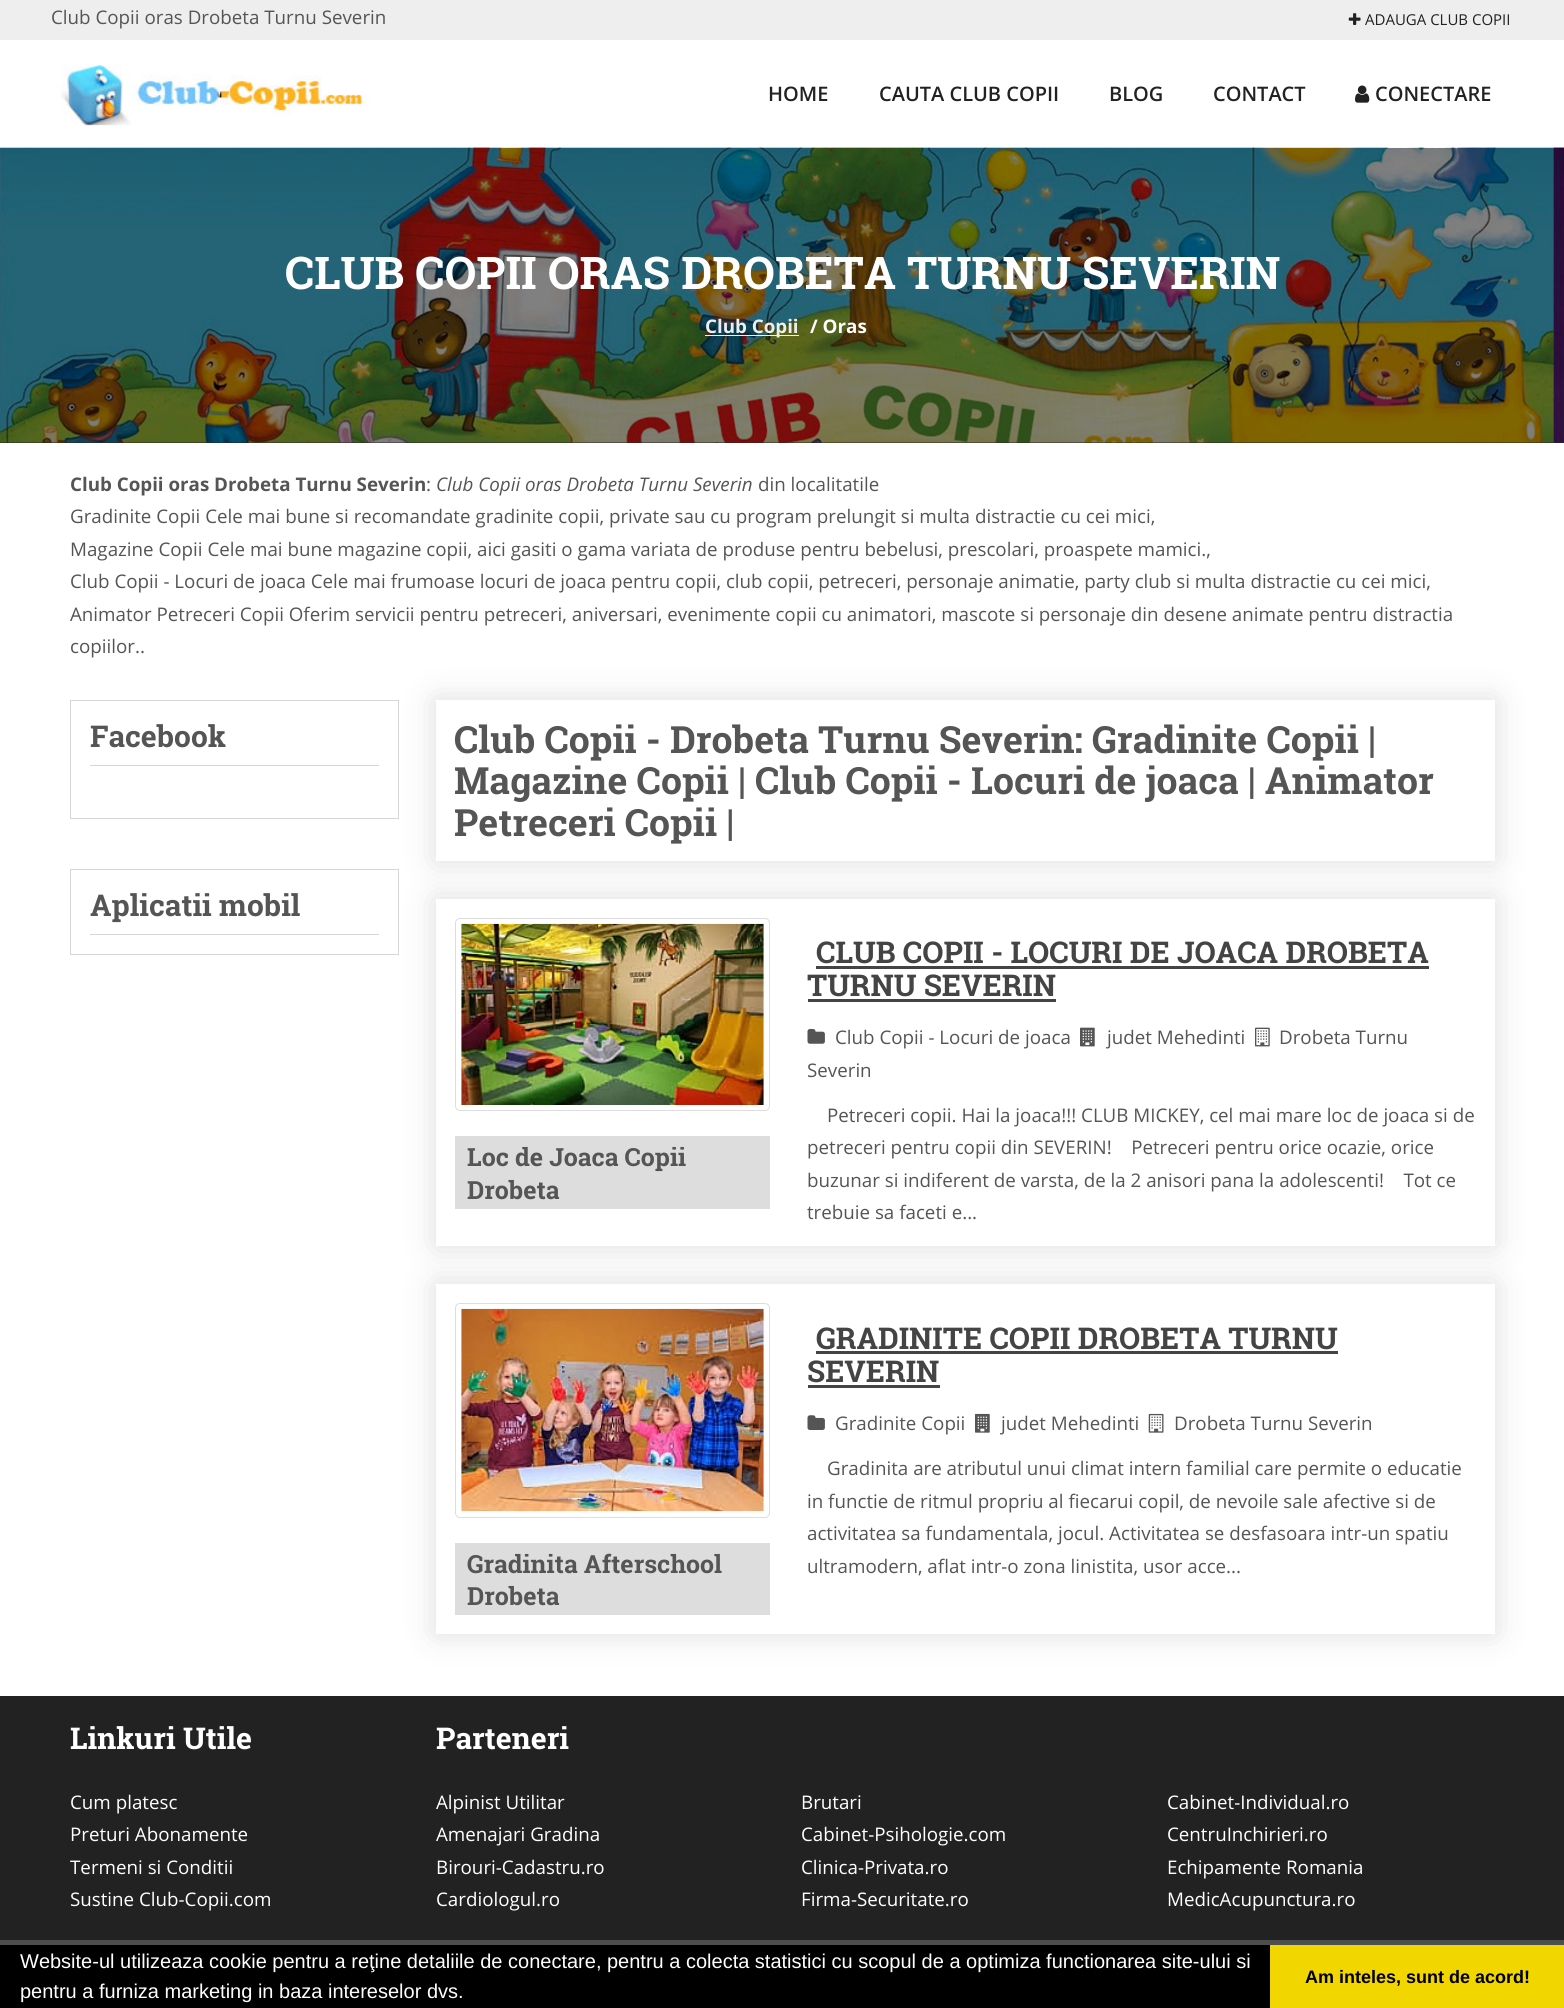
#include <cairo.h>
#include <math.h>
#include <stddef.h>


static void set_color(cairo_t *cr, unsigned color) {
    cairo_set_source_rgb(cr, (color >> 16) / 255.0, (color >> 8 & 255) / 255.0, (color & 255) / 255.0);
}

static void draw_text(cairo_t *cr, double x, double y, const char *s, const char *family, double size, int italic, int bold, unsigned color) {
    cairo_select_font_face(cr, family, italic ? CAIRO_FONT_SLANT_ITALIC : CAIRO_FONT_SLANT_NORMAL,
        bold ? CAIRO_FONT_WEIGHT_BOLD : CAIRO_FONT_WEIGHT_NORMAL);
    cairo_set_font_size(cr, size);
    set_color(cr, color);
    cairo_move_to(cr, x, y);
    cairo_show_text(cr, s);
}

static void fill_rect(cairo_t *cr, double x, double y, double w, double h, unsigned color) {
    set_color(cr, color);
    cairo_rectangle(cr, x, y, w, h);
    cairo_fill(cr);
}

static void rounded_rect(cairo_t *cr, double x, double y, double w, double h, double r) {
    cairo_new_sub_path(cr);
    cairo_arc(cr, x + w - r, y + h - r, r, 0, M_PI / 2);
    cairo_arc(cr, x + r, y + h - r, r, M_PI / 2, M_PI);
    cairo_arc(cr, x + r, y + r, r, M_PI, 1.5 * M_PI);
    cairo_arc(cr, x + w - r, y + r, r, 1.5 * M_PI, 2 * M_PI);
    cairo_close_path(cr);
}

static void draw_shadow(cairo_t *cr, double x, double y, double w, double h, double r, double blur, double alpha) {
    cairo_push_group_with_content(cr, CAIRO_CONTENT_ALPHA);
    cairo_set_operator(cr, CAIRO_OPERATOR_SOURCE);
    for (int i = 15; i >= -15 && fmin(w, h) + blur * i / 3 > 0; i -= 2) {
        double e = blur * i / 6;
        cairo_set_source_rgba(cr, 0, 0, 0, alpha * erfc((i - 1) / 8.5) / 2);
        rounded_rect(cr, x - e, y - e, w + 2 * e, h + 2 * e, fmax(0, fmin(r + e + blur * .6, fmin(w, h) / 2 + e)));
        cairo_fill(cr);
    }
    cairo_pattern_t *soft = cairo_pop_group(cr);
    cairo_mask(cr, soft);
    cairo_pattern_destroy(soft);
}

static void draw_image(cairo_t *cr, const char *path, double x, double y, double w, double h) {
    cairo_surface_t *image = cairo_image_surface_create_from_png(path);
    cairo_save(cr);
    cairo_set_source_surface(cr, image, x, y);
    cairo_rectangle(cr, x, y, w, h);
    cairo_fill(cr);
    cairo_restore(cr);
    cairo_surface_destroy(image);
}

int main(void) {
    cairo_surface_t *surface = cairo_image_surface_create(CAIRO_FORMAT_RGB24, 1564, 2008);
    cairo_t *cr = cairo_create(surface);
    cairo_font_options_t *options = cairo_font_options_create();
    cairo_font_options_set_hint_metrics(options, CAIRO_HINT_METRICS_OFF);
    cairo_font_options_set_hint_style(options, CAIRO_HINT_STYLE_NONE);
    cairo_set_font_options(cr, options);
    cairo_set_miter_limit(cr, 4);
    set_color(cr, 0xFFFFFF);
    cairo_paint(cr);
    fill_rect(cr, 0, 0, 1564, 40, 0xEEEEEE);
    draw_text(cr, 51, 24, "Club Copii oras Drobeta Turnu Severin", "Open Sans", 18.75, 0, 0, 0x555555);
    draw_image(cr, "assets/img1.png", 1348, 13, 13, 12);
    draw_text(cr, 1365, 25, "ADAUGA CLUB COPII", "Open Sans", 15, 0, 0, 0x222222);
    draw_image(cr, "assets/img2.png", 61, 64, 310, 62);
    draw_text(cr, 768, 101, "HOME", "Open Sans SemiBold", 20, 0, 0, 0x222222);
    draw_text(cr, 879, 101, "CAUTA CLUB COPII", "Open Sans SemiBold", 20, 0, 0, 0x222222);
    draw_text(cr, 1109, 101, "BLOG", "Open Sans SemiBold", 20, 0, 0, 0x222222);
    draw_text(cr, 1213, 101, "CONTACT", "Open Sans SemiBold", 20, 0, 0, 0x222222);
    draw_image(cr, "assets/img3.png", 1355, 85, 15, 18);
    draw_text(cr, 1375, 101, "CONECTARE", "Open Sans SemiBold", 20, 0, 0, 0x222222);
    fill_rect(cr, 0, 442, 1564, 1, 0x2B2B2B);
    draw_image(cr, "assets/img4.png", 0, 147, 1564, 296);
    draw_text(cr, 285, 289, "CLUB COPII ORAS DROBETA TURNU SEVERIN", "Roboto Slab", 45, 0, 1, 0xFFFFFF);
    fill_rect(cr, 705, 335, 94, 1, 0xEEEEEE);
    draw_text(cr, 705, 333, "Club Copii", "Open Sans", 18.75, 0, 1, 0xEEEEEE);
    draw_text(cr, 810, 333, "/ Oras", "Open Sans", 18.75, 0, 1, 0xFFFFFF);
    draw_text(cr, 70, 491, "Club Copii oras Drobeta Turnu Severin", "Open Sans", 18.75, 0, 1, 0x555555);
    draw_text(cr, 426, 491, ":", "Open Sans", 18.75, 0, 0, 0x555555);
    draw_text(cr, 436, 491, "Club Copii oras Drobeta Turnu Severin", "Open Sans", 18.75, 1, 0, 0x555555);
    draw_text(cr, 758, 491, "din localitatile", "Open Sans", 18.75, 0, 0, 0x555555);
    draw_text(cr, 70, 523, "Gradinite Copii Cele mai bune si recomandate gradinite copii, private sau cu program prelungit si multa distractie cu cei mici,", "Open Sans", 18.75, 0, 0, 0x555555);
    draw_text(cr, 70, 556, "Magazine Copii Cele mai bune magazine copii, aici gasiti o gama variata de produse pentru bebelusi, prescolari, proaspete mamici.,", "Open Sans", 18.75, 0, 0, 0x555555);
    draw_text(cr, 70, 588, "Club Copii - Locuri de joaca Cele mai frumoase locuri de joaca pentru copii, club copii, petreceri, personaje animatie, party club si multa distractie cu cei mici,", "Open Sans", 18.75, 0, 0, 0x555555);
    draw_text(cr, 70, 621, "Animator Petreceri Copii Oferim servicii pentru petreceri, aniversari, evenimente copii cu animatori, mascote si personaje din desene animate pentru distractia", "Open Sans", 18.75, 0, 0, 0x555555);
    draw_text(cr, 70, 653, "copiilor..", "Open Sans", 18.75, 0, 0, 0x555555);
    cairo_rectangle(cr, 70.5, 700.5, 328, 118);
    set_color(cr, 0xD6D6D6);
    cairo_set_line_width(cr, 1);
    cairo_stroke(cr);
    fill_rect(cr, 90, 765, 289, 1, 0xD6D6D6);
    draw_text(cr, 90, 747, "Facebook", "Roboto Slab", 30, 0, 1, 0x555555);
    cairo_rectangle(cr, 70.5, 869.5, 328, 85);
    set_color(cr, 0xD6D6D6);
    cairo_stroke(cr);
    fill_rect(cr, 90, 934, 289, 1, 0xD6D6D6);
    draw_text(cr, 90, 916, "Aplicatii mobil", "Roboto Slab", 30, 0, 1, 0x555555);
    cairo_save(cr);
    cairo_set_fill_rule(cr, CAIRO_FILL_RULE_EVEN_ODD);
    cairo_new_path(cr);
    cairo_move_to(cr, 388, 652);
    cairo_line_to(cr, 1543, 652);
    cairo_line_to(cr, 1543, 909);
    cairo_line_to(cr, 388, 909);
    cairo_close_path(cr);
    cairo_move_to(cr, 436, 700);
    cairo_line_to(cr, 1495, 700);
    cairo_line_to(cr, 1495, 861);
    cairo_line_to(cr, 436, 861);
    cairo_close_path(cr);
    cairo_clip(cr);
    set_color(cr, 0xDDDDDD);
    draw_shadow(cr, 436, 700, 1059, 161, 0, 15.5, 1);
    cairo_restore(cr);
    draw_text(cr, 454, 753, "Club Copii - Drobeta Turnu Severin: Gradinite Copii |", "Roboto Slab", 37.5, 0, 1, 0x555555);
    draw_text(cr, 454, 794, "Magazine Copii | Club Copii - Locuri de joaca | Animator", "Roboto Slab", 37.5, 0, 1, 0x555555);
    draw_text(cr, 454, 836, "Petreceri Copii |", "Roboto Slab", 37.5, 0, 1, 0x555555);
    cairo_save(cr);
    cairo_set_fill_rule(cr, CAIRO_FILL_RULE_EVEN_ODD);
    cairo_new_path(cr);
    cairo_move_to(cr, 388, 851);
    cairo_line_to(cr, 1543, 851);
    cairo_line_to(cr, 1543, 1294);
    cairo_line_to(cr, 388, 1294);
    cairo_close_path(cr);
    cairo_move_to(cr, 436, 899);
    cairo_line_to(cr, 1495, 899);
    cairo_line_to(cr, 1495, 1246);
    cairo_line_to(cr, 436, 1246);
    cairo_close_path(cr);
    cairo_clip(cr);
    set_color(cr, 0xDDDDDD);
    draw_shadow(cr, 436, 899, 1059, 347, 0, 15.5, 1);
    cairo_restore(cr);
    rounded_rect(cr, 455.5, 918.5, 314, 192, 4.5);
    set_color(cr, 0xDDDDDD);
    cairo_stroke(cr);
    draw_image(cr, "assets/img5.png", 461, 923, 303, 182);
    fill_rect(cr, 455, 1136, 315, 73, 0xDDDDDD);
    draw_text(cr, 467, 1166, "Loc de Joaca Copii", "Roboto Slab", 25, 0, 1, 0x555555);
    draw_text(cr, 467, 1199, "Drobeta", "Roboto Slab", 25, 0, 1, 0x555555);
    draw_text(cr, 816, 963, "CLUB COPII - LOCURI DE JOACA DROBETA", "Roboto Slab", 30, 0, 1, 0x444444);
    fill_rect(cr, 816, 966, 613, 3, 0x444444);
    draw_text(cr, 807, 996, "TURNU SEVERIN", "Roboto Slab", 30, 0, 1, 0x444444);
    fill_rect(cr, 808, 999, 248, 3, 0x444444);
    draw_image(cr, "assets/img6.png", 807, 1029, 18, 15);
    draw_image(cr, "assets/img7.png", 1080, 1027, 15, 20);
    draw_image(cr, "assets/img8.png", 1255, 1027, 15, 20);
    draw_text(cr, 1279, 1044, "Drobeta Turnu", "Open Sans", 18.75, 0, 0, 0x555555);
    draw_text(cr, 807, 1077, "Severin", "Open Sans", 18.75, 0, 0, 0x555555);
    draw_text(cr, 835, 1044, "Club Copii - Locuri de joaca", "Open Sans", 18.75, 0, 0, 0x555555);
    draw_text(cr, 1107, 1044, "judet Mehedinti", "Open Sans", 18.75, 0, 0, 0x555555);
    draw_text(cr, 827, 1122, "Petreceri copii. Hai la joaca!!! CLUB MICKEY, cel mai mare loc de joaca si de", "Open Sans", 18.75, 0, 0, 0x555555);
    draw_text(cr, 807, 1154, "petreceri pentru copii din SEVERIN!    Petreceri pentru orice ocazie, orice", "Open Sans", 18.75, 0, 0, 0x555555);
    draw_text(cr, 807, 1187, "buzunar si indiferent de varsta, de la 2 anisori pana la adolescenti!    Tot ce", "Open Sans", 18.75, 0, 0, 0x555555);
    draw_text(cr, 807, 1219, "trebuie sa faceti e...", "Open Sans", 18.75, 0, 0, 0x555555);
    cairo_save(cr);
    cairo_set_fill_rule(cr, CAIRO_FILL_RULE_EVEN_ODD);
    cairo_new_path(cr);
    cairo_move_to(cr, 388, 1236);
    cairo_line_to(cr, 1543, 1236);
    cairo_line_to(cr, 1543, 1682);
    cairo_line_to(cr, 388, 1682);
    cairo_close_path(cr);
    cairo_move_to(cr, 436, 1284);
    cairo_line_to(cr, 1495, 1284);
    cairo_line_to(cr, 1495, 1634);
    cairo_line_to(cr, 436, 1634);
    cairo_close_path(cr);
    cairo_clip(cr);
    set_color(cr, 0xDDDDDD);
    draw_shadow(cr, 436, 1284, 1059, 350, 0, 15.5, 1);
    cairo_restore(cr);
    rounded_rect(cr, 455.5, 1303.5, 314, 214, 4.5);
    set_color(cr, 0xDDDDDD);
    cairo_stroke(cr);
    draw_image(cr, "assets/img9.png", 461, 1308, 303, 204);
    fill_rect(cr, 455, 1543, 315, 72, 0xDDDDDD);
    draw_text(cr, 467, 1573, "Gradinita Afterschool", "Roboto Slab", 25, 0, 1, 0x555555);
    draw_text(cr, 467, 1605, "Drobeta", "Roboto Slab", 25, 0, 1, 0x555555);
    draw_text(cr, 816, 1349, "GRADINITE COPII DROBETA TURNU", "Roboto Slab", 30, 0, 1, 0x444444);
    fill_rect(cr, 816, 1351, 522, 3, 0x444444);
    draw_text(cr, 807, 1382, "SEVERIN", "Roboto Slab", 30, 0, 1, 0x444444);
    fill_rect(cr, 808, 1385, 132, 3, 0x444444);
    draw_image(cr, "assets/img10.png", 807, 1415, 18, 15);
    draw_text(cr, 835, 1430, "Gradinite Copii", "Open Sans", 18.75, 0, 0, 0x555555);
    draw_image(cr, "assets/img11.png", 975, 1413, 15, 20);
    draw_text(cr, 1001, 1430, "judet Mehedinti", "Open Sans", 18.75, 0, 0, 0x555555);
    draw_image(cr, "assets/img12.png", 1148, 1413, 16, 20);
    draw_text(cr, 1174, 1430, "Drobeta Turnu Severin", "Open Sans", 18.75, 0, 0, 0x555555);
    draw_text(cr, 827, 1475, "Gradinita are atributul unui climat intern familial care permite o educatie", "Open Sans", 18.75, 0, 0, 0x555555);
    draw_text(cr, 807, 1508, "in functie de ritmul propriu al fiecarui copil, de nevoile sale afective si de", "Open Sans", 18.75, 0, 0, 0x555555);
    draw_text(cr, 807, 1540, "activitatea sa fundamentala, jocul. Activitatea se desfasoara intr-un spatiu", "Open Sans", 18.75, 0, 0, 0x555555);
    draw_text(cr, 807, 1573, "ultramodern, aflat intr-o zona linistita, usor acce...", "Open Sans", 18.75, 0, 0, 0x555555);
    fill_rect(cr, 0, 1696, 1564, 244, 0x222222);
    draw_text(cr, 70, 1749, "Linkuri Utile", "Roboto Slab", 30, 0, 1, 0xFFFFFF);
    draw_text(cr, 70, 1809, "Cum platesc", "Open Sans", 18.75, 0, 0, 0xFFFFFF);
    draw_text(cr, 70, 1841, "Preturi Abonamente", "Open Sans", 18.75, 0, 0, 0xFFFFFF);
    draw_text(cr, 70, 1874, "Termeni si Conditii", "Open Sans", 18.75, 0, 0, 0xFFFFFF);
    draw_text(cr, 70, 1906, "Sustine Club-Copii.com", "Open Sans", 18.75, 0, 0, 0xFFFFFF);
    draw_text(cr, 436, 1749, "Parteneri", "Roboto Slab", 30, 0, 1, 0xFFFFFF);
    draw_text(cr, 436, 1809, "Alpinist Utilitar", "Open Sans", 18.75, 0, 0, 0xFFFFFF);
    draw_text(cr, 436, 1841, "Amenajari Gradina", "Open Sans", 18.75, 0, 0, 0xFFFFFF);
    draw_text(cr, 436, 1874, "Birouri-Cadastru.ro", "Open Sans", 18.75, 0, 0, 0xFFFFFF);
    draw_text(cr, 436, 1906, "Cardiologul.ro", "Open Sans", 18.75, 0, 0, 0xFFFFFF);
    draw_text(cr, 801, 1809, "Brutari", "Open Sans", 18.75, 0, 0, 0xFFFFFF);
    draw_text(cr, 801, 1841, "Cabinet-Psihologie.com", "Open Sans", 18.75, 0, 0, 0xFFFFFF);
    draw_text(cr, 801, 1874, "Clinica-Privata.ro", "Open Sans", 18.75, 0, 0, 0xFFFFFF);
    draw_text(cr, 801, 1906, "Firma-Securitate.ro", "Open Sans", 18.75, 0, 0, 0xFFFFFF);
    draw_text(cr, 1167, 1809, "Cabinet-Individual.ro", "Open Sans", 18.75, 0, 0, 0xFFFFFF);
    draw_text(cr, 1167, 1841, "CentruInchirieri.ro", "Open Sans", 18.75, 0, 0, 0xFFFFFF);
    draw_text(cr, 1167, 1874, "Echipamente Romania", "Open Sans", 18.75, 0, 0, 0xFFFFFF);
    draw_text(cr, 1167, 1906, "MedicAcupunctura.ro", "Open Sans", 18.75, 0, 0, 0xFFFFFF);
    fill_rect(cr, 0, 1940, 1564, 5, 0x4E4E4E);
    fill_rect(cr, 0, 1945, 1270, 63, 0x000000);
    draw_text(cr, 20, 1968, "Website-ul utilizeaza cookie pentru a reţine detaliile de conectare, pentru a colecta statistici cu scopul de a optimiza functionarea site-ului si", "Liberation Sans", 20, 0, 0, 0xFFFFFF);
    draw_text(cr, 20, 1998, "pentru a furniza marketing in baza intereselor dvs.", "Liberation Sans", 20, 0, 0, 0xFFFFFF);
    fill_rect(cr, 1270, 1945, 294, 63, 0xF1D600);
    draw_text(cr, 1305, 1983, "Am inteles, sunt de acord!", "Liberation Sans", 18, 0, 1, 0x000000);
    cairo_surface_write_to_png(surface, "output.png");
    cairo_font_options_destroy(options);
    cairo_destroy(cr);
    cairo_surface_destroy(surface);
    return 0;
}
